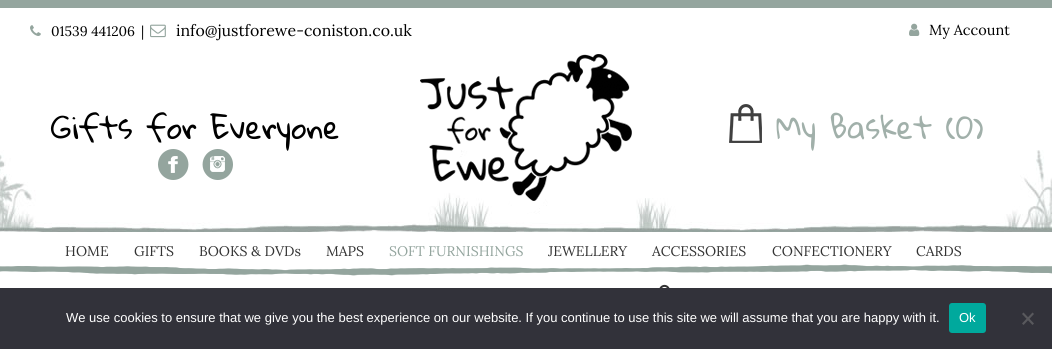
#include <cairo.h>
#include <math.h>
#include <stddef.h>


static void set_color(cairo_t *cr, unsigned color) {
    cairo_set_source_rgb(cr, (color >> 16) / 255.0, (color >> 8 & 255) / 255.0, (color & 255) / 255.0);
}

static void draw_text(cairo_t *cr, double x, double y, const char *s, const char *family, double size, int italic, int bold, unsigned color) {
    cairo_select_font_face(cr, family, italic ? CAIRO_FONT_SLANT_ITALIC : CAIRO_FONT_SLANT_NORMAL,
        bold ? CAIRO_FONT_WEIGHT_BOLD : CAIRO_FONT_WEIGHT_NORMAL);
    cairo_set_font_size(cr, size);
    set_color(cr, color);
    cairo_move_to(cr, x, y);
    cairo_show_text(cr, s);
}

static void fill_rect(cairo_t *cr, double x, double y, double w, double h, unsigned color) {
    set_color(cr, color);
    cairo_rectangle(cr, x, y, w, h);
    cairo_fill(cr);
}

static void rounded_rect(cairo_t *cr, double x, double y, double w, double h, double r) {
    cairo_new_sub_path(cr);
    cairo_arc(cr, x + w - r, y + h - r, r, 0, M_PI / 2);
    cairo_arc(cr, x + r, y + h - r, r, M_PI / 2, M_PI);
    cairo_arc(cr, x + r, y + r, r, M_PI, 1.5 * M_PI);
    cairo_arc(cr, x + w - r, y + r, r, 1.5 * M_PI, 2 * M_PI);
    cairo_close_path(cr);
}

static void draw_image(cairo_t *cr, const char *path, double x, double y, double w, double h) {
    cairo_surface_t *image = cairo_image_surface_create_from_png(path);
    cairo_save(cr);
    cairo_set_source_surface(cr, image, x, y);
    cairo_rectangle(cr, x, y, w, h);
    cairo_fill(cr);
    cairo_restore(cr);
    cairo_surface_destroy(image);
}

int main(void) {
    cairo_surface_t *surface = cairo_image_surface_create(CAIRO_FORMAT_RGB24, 1052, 349);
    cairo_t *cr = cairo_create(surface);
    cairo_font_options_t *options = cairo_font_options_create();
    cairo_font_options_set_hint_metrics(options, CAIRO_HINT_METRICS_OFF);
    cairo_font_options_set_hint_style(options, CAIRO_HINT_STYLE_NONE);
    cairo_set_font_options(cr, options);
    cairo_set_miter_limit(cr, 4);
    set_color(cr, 0xFFFFFF);
    cairo_paint(cr);
    fill_rect(cr, 0, 0, 1052, 8, 0x94A59E);
    draw_image(cr, "assets/img1.png", 30, 25, 11, 11);
    draw_text(cr, 51, 36, "01539 441206", "Lora", 13.75, 0, 0, 0x000000);
    draw_text(cr, 141, 36, "|", "Lora", 13.75, 0, 0, 0x000000);
    draw_image(cr, "assets/img2.png", 150, 24, 16, 14);
    draw_text(cr, 176, 36, "info@justforewe-coniston.co.uk", "Lora", 15.9, 0, 0, 0x000000);
    draw_image(cr, "assets/img3.png", 909, 23, 11, 13);
    draw_text(cr, 929, 35, "My Account", "Lora", 14.5, 0, 0, 0x000000);
    draw_image(cr, "assets/img4.png", 0, 150, 1052, 82);
    draw_text(cr, 51, 139, "Gifts for Everyone", "Gloria Hallelujah", 30, 0, 0, 0x000000);
    draw_image(cr, "assets/img5.png", 158, 149, 31, 31);
    draw_image(cr, "assets/img6.png", 202, 149, 31, 31);
    draw_image(cr, "assets/img7.png", 420, 54, 212, 147);
    draw_image(cr, "assets/img8.png", 729, 104, 33, 39);
    draw_text(cr, 776, 139, "My Basket (0)", "Gloria Hallelujah", 30, 0, 0, 0xA1B0AA);
    draw_image(cr, "assets/img9.png", 0, 264, 1052, 12);
    draw_text(cr, 65, 256, "HOME", "Lora", 14, 0, 0, 0x333333);
    draw_text(cr, 134, 256, "GIFTS", "Lora", 14, 0, 0, 0x333333);
    draw_text(cr, 199, 256, "BOOKS & DVDs", "Lora", 14, 0, 0, 0x333333);
    draw_text(cr, 326, 256, "MAPS", "Lora", 14, 0, 0, 0x333333);
    draw_text(cr, 389, 256, "SOFT FURNISHINGS", "Lora", 14, 0, 0, 0x94A59E);
    draw_text(cr, 548, 256, "JEWELLERY", "Lora", 14, 0, 0, 0x333333);
    draw_text(cr, 652, 256, "ACCESSORIES", "Lora", 14, 0, 0, 0x333333);
    draw_text(cr, 772, 256, "CONFECTIONERY", "Lora", 14, 0, 0, 0x333333);
    draw_text(cr, 916, 256, "CARDS", "Lora", 14, 0, 0, 0x333333);
    draw_image(cr, "assets/img10.png", 659, 284, 11, 4);
    fill_rect(cr, 0, 288, 1052, 61, 0x32323A);
    draw_text(cr, 66, 322, "We use cookies to ensure that we give you the best experience on our website. If you continue to use this site we will assume that you are happy with it.", "Liberation Sans", 13, 0, 0, 0xFFFFFF);
    set_color(cr, 0x00A99D);
    rounded_rect(cr, 949, 303, 37, 30, 3);
    cairo_fill(cr);
    draw_text(cr, 959, 322, "Ok", "Liberation Sans", 13, 0, 0, 0xFFFFFF);
    set_color(cr, 0x59595D);
    cairo_new_path(cr);
    cairo_move_to(cr, 1032.5, 312.5);
    cairo_line_to(cr, 1034, 314);
    cairo_line_to(cr, 1023.5, 325);
    cairo_line_to(cr, 1022, 323.5);
    cairo_close_path(cr);
    cairo_fill(cr);
    cairo_new_path(cr);
    cairo_move_to(cr, 1022, 314);
    cairo_line_to(cr, 1023.5, 312.5);
    cairo_line_to(cr, 1034, 323.5);
    cairo_line_to(cr, 1032.5, 325);
    cairo_close_path(cr);
    cairo_fill(cr);
    cairo_surface_write_to_png(surface, "output.png");
    cairo_font_options_destroy(options);
    cairo_destroy(cr);
    cairo_surface_destroy(surface);
    return 0;
}
